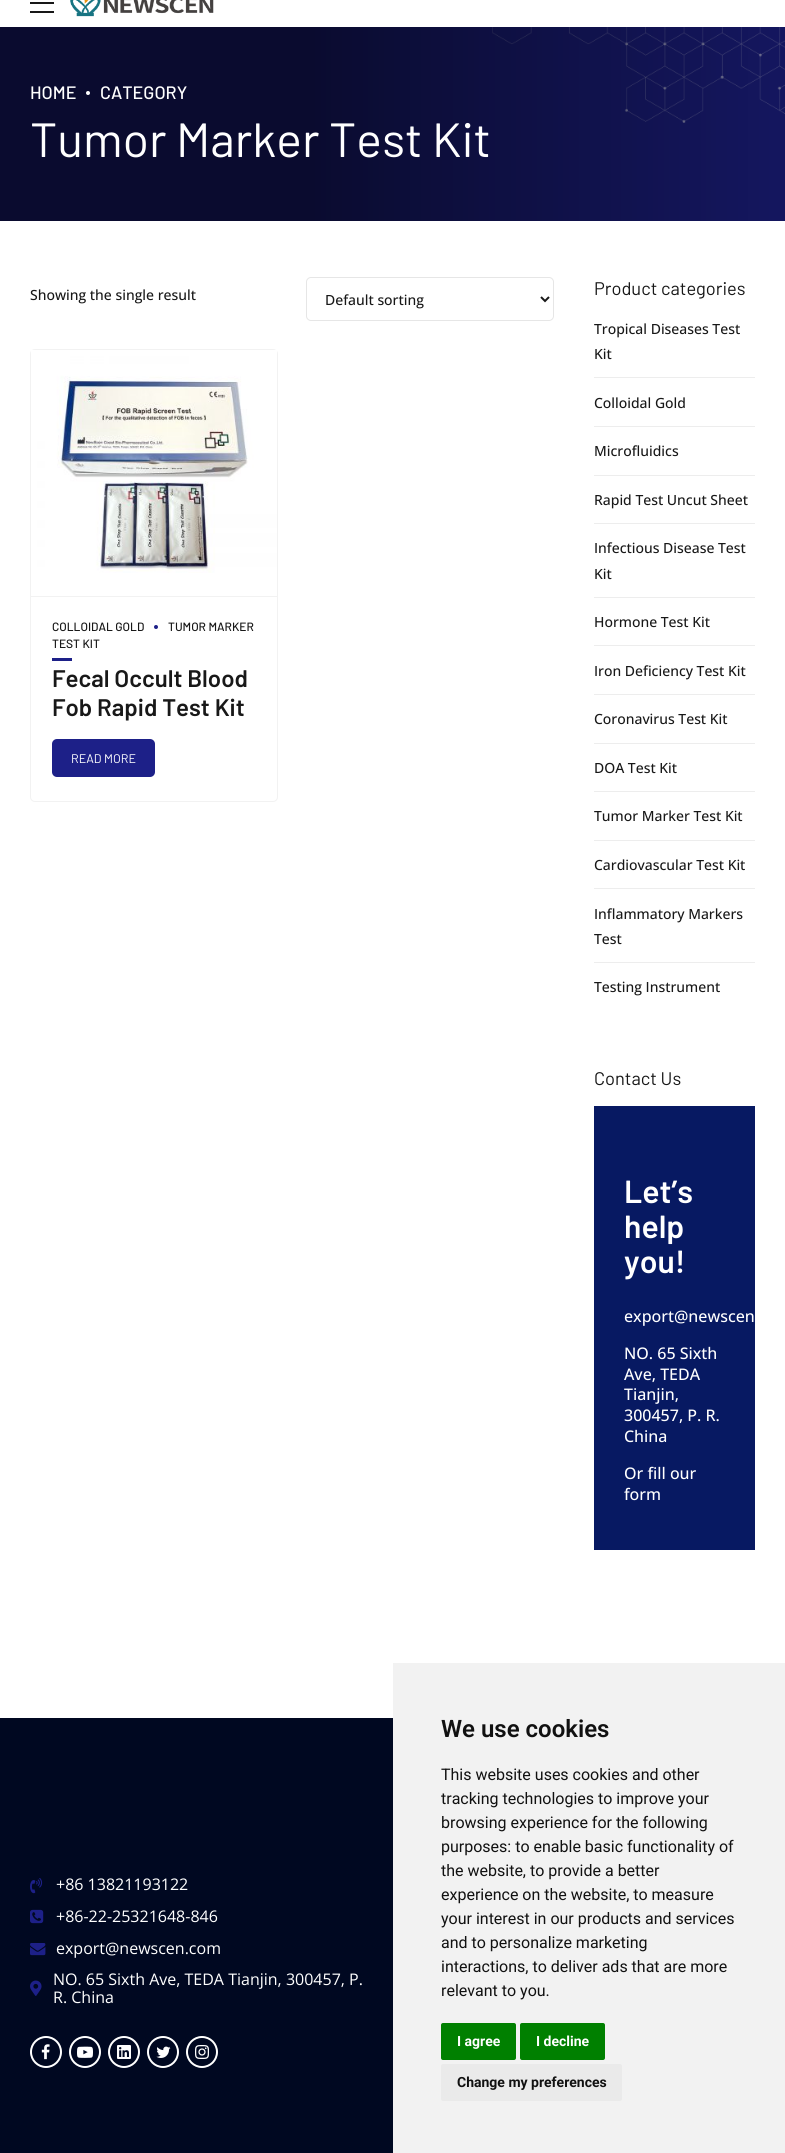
#include <cairo.h>
#include <math.h>
#include <stddef.h>


static void set_color(cairo_t *cr, unsigned color) {
    cairo_set_source_rgb(cr, (color >> 16) / 255.0, (color >> 8 & 255) / 255.0, (color & 255) / 255.0);
}

static void draw_text(cairo_t *cr, double x, double y, const char *s, const char *family, double size, int italic, int bold, unsigned color) {
    cairo_select_font_face(cr, family, italic ? CAIRO_FONT_SLANT_ITALIC : CAIRO_FONT_SLANT_NORMAL,
        bold ? CAIRO_FONT_WEIGHT_BOLD : CAIRO_FONT_WEIGHT_NORMAL);
    cairo_set_font_size(cr, size);
    set_color(cr, color);
    cairo_move_to(cr, x, y);
    cairo_show_text(cr, s);
}

static void fill_rect(cairo_t *cr, double x, double y, double w, double h, unsigned color) {
    set_color(cr, color);
    cairo_rectangle(cr, x, y, w, h);
    cairo_fill(cr);
}

static void rounded_rect(cairo_t *cr, double x, double y, double w, double h, double r) {
    cairo_new_sub_path(cr);
    cairo_arc(cr, x + w - r, y + h - r, r, 0, M_PI / 2);
    cairo_arc(cr, x + r, y + h - r, r, M_PI / 2, M_PI);
    cairo_arc(cr, x + r, y + r, r, M_PI, 1.5 * M_PI);
    cairo_arc(cr, x + w - r, y + r, r, 1.5 * M_PI, 2 * M_PI);
    cairo_close_path(cr);
}

static void draw_image(cairo_t *cr, const char *path, double x, double y, double w, double h) {
    cairo_surface_t *image = cairo_image_surface_create_from_png(path);
    cairo_save(cr);
    cairo_set_source_surface(cr, image, x, y);
    cairo_rectangle(cr, x, y, w, h);
    cairo_fill(cr);
    cairo_restore(cr);
    cairo_surface_destroy(image);
}

int main(void) {
    cairo_surface_t *surface = cairo_image_surface_create(CAIRO_FORMAT_RGB24, 785, 2153);
    cairo_t *cr = cairo_create(surface);
    cairo_font_options_t *options = cairo_font_options_create();
    cairo_font_options_set_hint_metrics(options, CAIRO_HINT_METRICS_OFF);
    cairo_font_options_set_hint_style(options, CAIRO_HINT_STYLE_NONE);
    cairo_set_font_options(cr, options);
    cairo_set_miter_limit(cr, 4);
    cairo_pattern_t *gradient;
    set_color(cr, 0xFFFFFF);
    cairo_paint(cr);
    fill_rect(cr, 30, 2, 24, 2, 0x181818);
    fill_rect(cr, 30, 11, 24, 2, 0x181818);
    draw_image(cr, "assets/img1.png", 70, 0, 144, 17);
    fill_rect(cr, 0, 27, 785, 194, 0x1D2088);
    draw_image(cr, "assets/img2.png", 492, 27, 293, 96);
    gradient = cairo_pattern_create_linear(0, 124, 785, 124);
    cairo_pattern_add_color_stop_rgba(gradient, 0, 0, 0, 0, 0.65);
    cairo_pattern_add_color_stop_rgba(gradient, 0.4, 0, 0, 0, 0.65);
    cairo_pattern_add_color_stop_rgba(gradient, 1, 0, 0, 0, 0.3);
    cairo_set_source(cr, gradient);
    cairo_pattern_destroy(gradient);
    cairo_rectangle(cr, 0, 27, 785, 194);
    cairo_fill(cr);
    draw_text(cr, 30, 99, "HOME", "Barlow Medium", 18, 0, 0, 0xFFFFFF);
    cairo_new_path(cr);
    cairo_arc(cr, 88, 93, 2, 0, 2 * M_PI);
    cairo_fill(cr);
    draw_text(cr, 100, 99, "CATEGORY", "Barlow Medium", 18, 0, 0, 0xFFFFFF);
    draw_text(cr, 30, 157, "Tumor Marker Test Kit", "Barlow", 48, 0, 0, 0xFFFFFF);
    draw_text(cr, 30, 300, "Showing the single result", "Open Sans Medium", 14, 0, 0, 0x181818);
    rounded_rect(cr, 306.5, 277.5, 247, 43, 4.5);
    set_color(cr, 0xE6E6E6);
    cairo_set_line_width(cr, 1);
    cairo_stroke(cr);
    cairo_new_path(cr);
    cairo_move_to(cr, 541, 297);
    cairo_line_to(cr, 545, 301);
    cairo_line_to(cr, 549, 297);
    set_color(cr, 0x181818);
    cairo_set_line_width(cr, 2);
    cairo_stroke(cr);
    draw_text(cr, 325, 305, "Default sorting", "Open Sans Medium", 14, 0, 0, 0x181818);
    rounded_rect(cr, 30.5, 349.5, 247, 452, 4.5);
    set_color(cr, 0xF2F2F2);
    cairo_set_line_width(cr, 1);
    cairo_stroke(cr);
    fill_rect(cr, 31, 596, 246, 1, 0xF2F2F2);
    draw_image(cr, "assets/img3.png", 31, 350, 246, 223);
    draw_text(cr, 52, 631, "COLLOIDAL GOLD", "Barlow Medium", 12, 0, 0, 0x181818);
    set_color(cr, 0x1D2088);
    cairo_new_path(cr);
    cairo_arc(cr, 156, 627, 2, 0, 2 * M_PI);
    cairo_fill(cr);
    draw_text(cr, 168, 631, "TUMOR MARKER", "Barlow Medium", 12, 0, 0, 0x181818);
    draw_text(cr, 52, 648, "TEST KIT", "Barlow Medium", 12, 0, 0, 0x181818);
    fill_rect(cr, 52, 658, 20, 3, 0x1D2088);
    draw_text(cr, 52, 687, "Fecal Occult Blood", "Barlow SemiBold", 24, 0, 0, 0x181818);
    draw_text(cr, 52, 716, "Fob Rapid Test Kit", "Barlow SemiBold", 24, 0, 0, 0x181818);
    set_color(cr, 0x1D2088);
    rounded_rect(cr, 52, 739, 103, 38, 5);
    cairo_fill(cr);
    draw_text(cr, 71, 763, "READ MORE", "Barlow", 12.5, 0, 0, 0xFFFFFF);
    draw_text(cr, 594, 295, "Product categories", "Barlow", 18.25, 0, 0, 0x181818);
    fill_rect(cr, 594, 377, 161, 1, 0xEDEDED);
    draw_text(cr, 594, 334, "Tropical Diseases Test", "Open Sans Medium", 14, 0, 0, 0x181818);
    draw_text(cr, 594, 359, "Kit", "Open Sans Medium", 14, 0, 0, 0x181818);
    fill_rect(cr, 594, 426, 161, 1, 0xEDEDED);
    draw_text(cr, 594, 408, "Colloidal Gold", "Open Sans Medium", 14, 0, 0, 0x181818);
    fill_rect(cr, 594, 475, 161, 1, 0xEDEDED);
    draw_text(cr, 594, 456, "Microfluidics", "Open Sans Medium", 14, 0, 0, 0x181818);
    fill_rect(cr, 594, 523, 161, 1, 0xEDEDED);
    draw_text(cr, 594, 505, "Rapid Test Uncut Sheet", "Open Sans Medium", 14, 0, 0, 0x181818);
    fill_rect(cr, 594, 597, 161, 1, 0xEDEDED);
    draw_text(cr, 594, 553, "Infectious Disease Test", "Open Sans Medium", 14, 0, 0, 0x181818);
    draw_text(cr, 594, 579, "Kit", "Open Sans Medium", 14, 0, 0, 0x181818);
    fill_rect(cr, 594, 645, 161, 1, 0xEDEDED);
    draw_text(cr, 594, 627, "Hormone Test Kit", "Open Sans Medium", 14, 0, 0, 0x181818);
    fill_rect(cr, 594, 694, 161, 1, 0xEDEDED);
    draw_text(cr, 594, 676, "Iron Deficiency Test Kit", "Open Sans Medium", 14, 0, 0, 0x181818);
    fill_rect(cr, 594, 743, 161, 1, 0xEDEDED);
    draw_text(cr, 594, 724, "Coronavirus Test Kit", "Open Sans Medium", 14, 0, 0, 0x181818);
    fill_rect(cr, 594, 791, 161, 1, 0xEDEDED);
    draw_text(cr, 594, 773, "DOA Test Kit", "Open Sans Medium", 14, 0, 0, 0x181818);
    fill_rect(cr, 594, 840, 161, 1, 0xEDEDED);
    draw_text(cr, 594, 821, "Tumor Marker Test Kit", "Open Sans Medium", 14, 0, 0, 0x181818);
    fill_rect(cr, 594, 888, 161, 1, 0xEDEDED);
    draw_text(cr, 594, 870, "Cardiovascular Test Kit", "Open Sans Medium", 14, 0, 0, 0x181818);
    fill_rect(cr, 594, 962, 161, 1, 0xEDEDED);
    draw_text(cr, 594, 919, "Inflammatory Markers", "Open Sans Medium", 14, 0, 0, 0x181818);
    draw_text(cr, 594, 944, "Test", "Open Sans Medium", 14, 0, 0, 0x181818);
    draw_text(cr, 594, 992, "Testing Instrument", "Open Sans Medium", 14, 0, 0, 0x181818);
    draw_text(cr, 594, 1085, "Contact Us", "Barlow", 18.25, 0, 0, 0x181818);
    fill_rect(cr, 594, 1106, 161, 444, 0x071962);
    draw_text(cr, 624, 1203, "Let’s", "Barlow SemiBold", 32, 0, 0, 0xFFFFFF);
    draw_text(cr, 624, 1238, "help", "Barlow SemiBold", 32, 0, 0, 0xFFFFFF);
    draw_text(cr, 624, 1273, "you!", "Barlow SemiBold", 32, 0, 0, 0xFFFFFF);
    draw_text(cr, 624, 1322, "export@newscen", "Open Sans Medium", 16, 0, 0, 0xFFFFFF);
    draw_text(cr, 624, 1359, "NO. 65 Sixth", "Open Sans Medium", 16, 0, 0, 0xFFFFFF);
    draw_text(cr, 624, 1380, "Ave, TEDA", "Open Sans Medium", 16, 0, 0, 0xFFFFFF);
    draw_text(cr, 624, 1400, "Tianjin,", "Open Sans Medium", 16, 0, 0, 0xFFFFFF);
    draw_text(cr, 624, 1421, "300457, P. R.", "Open Sans Medium", 16, 0, 0, 0xFFFFFF);
    draw_text(cr, 624, 1442, "China", "Open Sans Medium", 16, 0, 0, 0xFFFFFF);
    draw_text(cr, 624, 1479, "Or fill our", "Open Sans Medium", 16, 0, 0, 0xFFFFFF);
    draw_text(cr, 624, 1500, "form", "Open Sans Medium", 16, 0, 0, 0xFFFFFF);
    fill_rect(cr, 0, 1718, 393, 435, 0x000821);
    draw_image(cr, "assets/img4.png", 30, 1878, 13, 16);
    draw_text(cr, 56, 1890, "+86 13821193122", "Open Sans", 16, 0, 0, 0xFFFFFF);
    draw_image(cr, "assets/img5.png", 30, 1909, 14, 15);
    draw_text(cr, 56, 1922, "+86-22-25321648-846", "Open Sans", 16, 0, 0, 0xFFFFFF);
    draw_image(cr, "assets/img6.png", 30, 1943, 16, 13);
    draw_text(cr, 56, 1954, "export@newscen.com", "Open Sans", 16, 0, 0, 0xFFFFFF);
    draw_image(cr, "assets/img7.png", 30, 1980, 12, 16);
    draw_text(cr, 53, 1985, "NO. 65 Sixth Ave, TEDA Tianjin, 300457, P.", "Open Sans", 16, 0, 0, 0xFFFFFF);
    draw_text(cr, 53, 2003, "R. China", "Open Sans", 16, 0, 0, 0xFFFFFF);
    cairo_new_path(cr);
    cairo_arc(cr, 46, 2052, 15, 0, 2 * M_PI);
    cairo_set_line_width(cr, 2);
    cairo_stroke(cr);
    draw_image(cr, "assets/img8.png", 41, 2044, 9, 16);
    cairo_arc(cr, 85, 2052, 15, 0, 2 * M_PI);
    cairo_stroke(cr);
    draw_image(cr, "assets/img9.png", 77, 2046, 16, 12);
    cairo_arc(cr, 124, 2052, 15, 0, 2 * M_PI);
    cairo_stroke(cr);
    draw_image(cr, "assets/img10.png", 117, 2045, 14, 14);
    cairo_arc(cr, 163, 2052, 15, 0, 2 * M_PI);
    cairo_stroke(cr);
    draw_image(cr, "assets/img11.png", 156, 2046, 15, 12);
    cairo_arc(cr, 202, 2052, 15, 0, 2 * M_PI);
    cairo_stroke(cr);
    draw_image(cr, "assets/img12.png", 195, 2045, 14, 14);
    fill_rect(cr, 393, 1663, 392, 490, 0xF2F2F2);
    draw_text(cr, 441, 1737, "We use cookies", "Roboto SemiBold", 24, 0, 0, 0x111111);
    draw_text(cr, 441, 1780, "This website uses cookies and other", "Roboto", 16, 0, 0, 0x111111);
    draw_text(cr, 441, 1804, "tracking technologies to improve your", "Roboto", 16, 0, 0, 0x111111);
    draw_text(cr, 441, 1828, "browsing experience for the following", "Roboto", 16, 0, 0, 0x111111);
    draw_text(cr, 441, 1852, "purposes: to enable basic functionality of", "Roboto", 16, 0, 0, 0x111111);
    draw_text(cr, 441, 1876, "the website, to provide a better", "Roboto", 16, 0, 0, 0x111111);
    draw_text(cr, 441, 1900, "experience on the website, to measure", "Roboto", 16, 0, 0, 0x111111);
    draw_text(cr, 441, 1924, "your interest in our products and services", "Roboto", 16, 0, 0, 0x111111);
    draw_text(cr, 441, 1948, "and to personalize marketing", "Roboto", 16, 0, 0, 0x111111);
    draw_text(cr, 441, 1972, "interactions, to deliver ads that are more", "Roboto", 16, 0, 0, 0x111111);
    draw_text(cr, 441, 1996, "relevant to you.", "Roboto", 16, 0, 0, 0x111111);
    set_color(cr, 0x008000);
    rounded_rect(cr, 441, 2023, 75, 37, 2);
    cairo_fill(cr);
    draw_text(cr, 457, 2046, "I agree", "Roboto", 14, 0, 1, 0xFFFFFF);
    set_color(cr, 0x008000);
    rounded_rect(cr, 520, 2023, 85, 37, 2);
    cairo_fill(cr);
    draw_text(cr, 536, 2046, "I decline", "Roboto", 14, 0, 1, 0xFFFFFF);
    set_color(cr, 0xEAEAEA);
    rounded_rect(cr, 441, 2064, 181, 37, 2);
    cairo_fill(cr);
    draw_text(cr, 457, 2087, "Change my preferences", "Roboto", 14, 0, 1, 0x111111);
    cairo_surface_write_to_png(surface, "output.png");
    cairo_font_options_destroy(options);
    cairo_destroy(cr);
    cairo_surface_destroy(surface);
    return 0;
}
